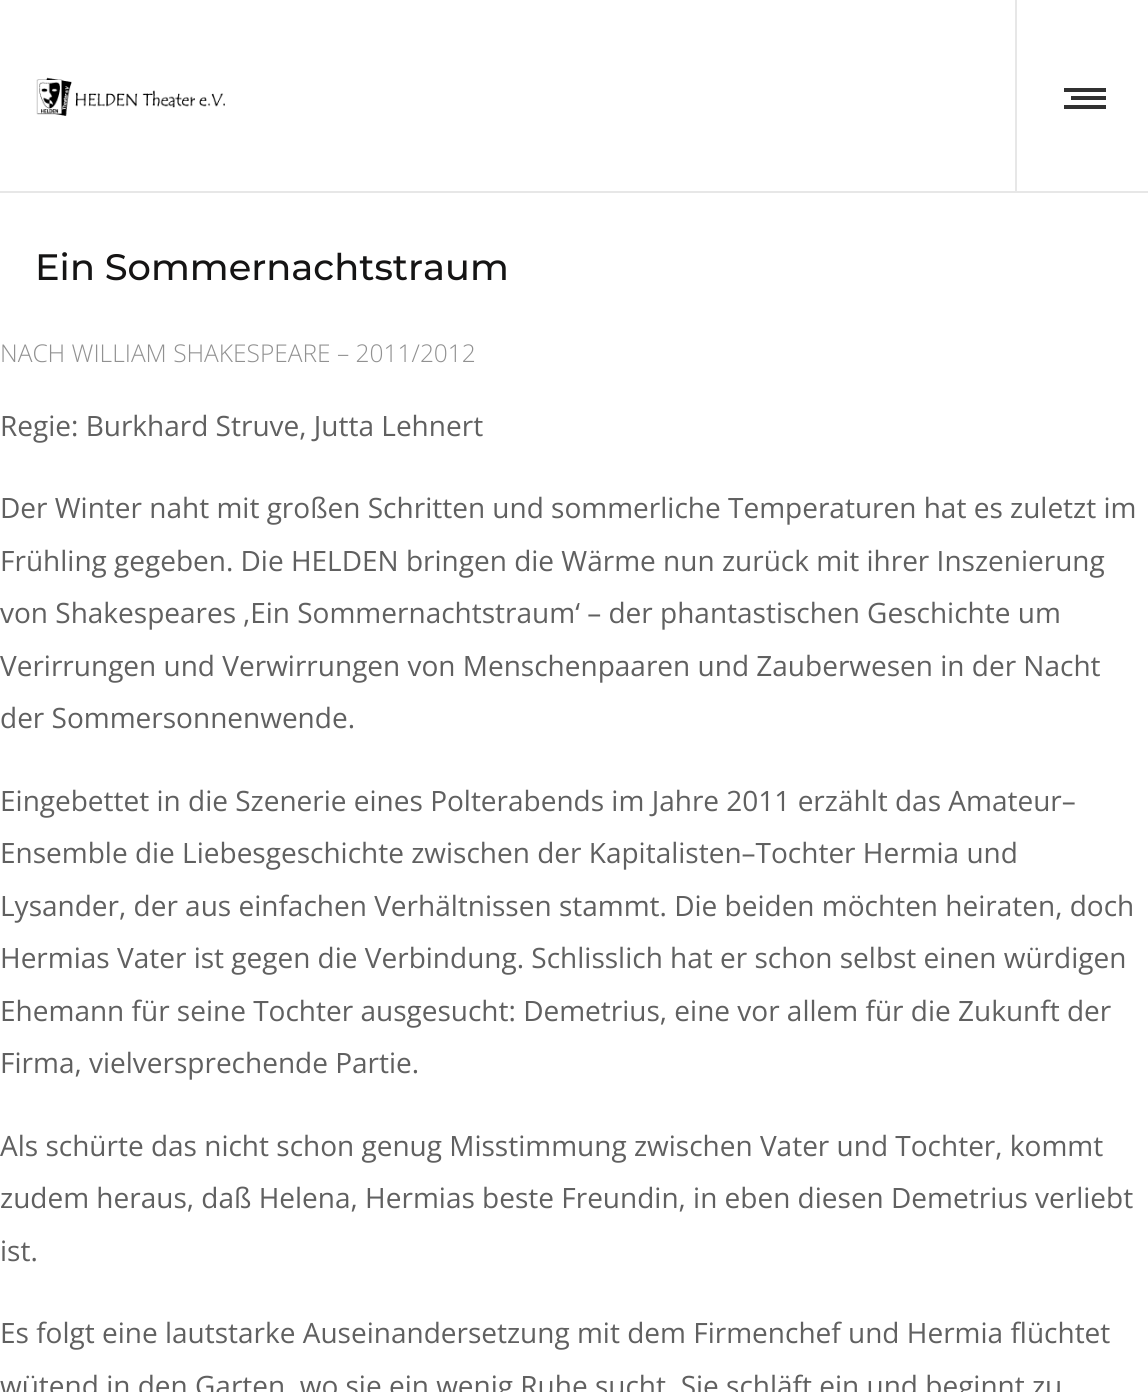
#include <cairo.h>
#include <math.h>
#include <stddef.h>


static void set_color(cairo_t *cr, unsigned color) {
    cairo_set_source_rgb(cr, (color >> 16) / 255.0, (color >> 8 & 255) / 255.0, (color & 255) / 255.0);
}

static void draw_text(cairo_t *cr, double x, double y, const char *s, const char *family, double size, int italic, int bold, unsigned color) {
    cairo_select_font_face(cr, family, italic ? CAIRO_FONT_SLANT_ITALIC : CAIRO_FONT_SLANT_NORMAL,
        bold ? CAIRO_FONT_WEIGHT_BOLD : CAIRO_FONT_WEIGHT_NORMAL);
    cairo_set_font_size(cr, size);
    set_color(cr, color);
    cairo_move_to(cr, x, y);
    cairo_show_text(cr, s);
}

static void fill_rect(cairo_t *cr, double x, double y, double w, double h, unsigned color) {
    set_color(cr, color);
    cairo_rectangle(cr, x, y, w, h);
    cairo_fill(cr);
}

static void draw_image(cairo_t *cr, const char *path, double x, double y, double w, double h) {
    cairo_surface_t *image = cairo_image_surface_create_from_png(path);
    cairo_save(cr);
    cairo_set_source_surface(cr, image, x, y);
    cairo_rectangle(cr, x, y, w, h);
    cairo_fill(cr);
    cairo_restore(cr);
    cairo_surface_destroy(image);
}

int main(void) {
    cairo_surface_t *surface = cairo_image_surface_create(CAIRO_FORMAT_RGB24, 1148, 1392);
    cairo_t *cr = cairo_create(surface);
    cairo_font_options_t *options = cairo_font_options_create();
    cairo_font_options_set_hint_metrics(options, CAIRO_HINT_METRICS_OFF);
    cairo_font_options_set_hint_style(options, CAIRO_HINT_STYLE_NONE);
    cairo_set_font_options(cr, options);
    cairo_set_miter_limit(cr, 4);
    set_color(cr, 0xFFFFFF);
    cairo_paint(cr);
    fill_rect(cr, 0, 191, 1148, 2, 0xE7E7E7);
    draw_image(cr, "assets/img1.png", 36, 77, 189, 39);
    fill_rect(cr, 1015, 0, 2, 191, 0xE7E7E7);
    fill_rect(cr, 1064, 88, 42, 4, 0x313131);
    fill_rect(cr, 1071, 96, 35, 4, 0x313131);
    fill_rect(cr, 1064, 105, 42, 4, 0x313131);
    draw_text(cr, 35, 280, "Ein Sommernachtstraum", "Montserrat Medium", 36.75, 0, 0, 0x151414);
    draw_text(cr, 0, 362, "NACH WILLIAM SHAKESPEARE – 2011/2012", "Open Sans Light", 24.5, 0, 0, 0x919191);
    draw_text(cr, 0, 436, "Regie: Burkhard Struve, Jutta Lehnert", "Open Sans", 28, 0, 0, 0x606060);
    draw_text(cr, 0, 518, "Der Winter naht mit großen Schritten und sommerliche Temperaturen hat es zuletzt im", "Open Sans", 28, 0, 0, 0x606060);
    draw_text(cr, 0, 571, "Frühling gegeben. Die HELDEN bringen die Wärme nun zurück mit ihrer Inszenierung", "Open Sans", 28, 0, 0, 0x606060);
    draw_text(cr, 0, 623, "von Shakespeares ‚Ein Sommernachtstraum‘ – der phantastischen Geschichte um", "Open Sans", 28, 0, 0, 0x606060);
    draw_text(cr, 0, 676, "Verirrungen und Verwirrungen von Menschenpaaren und Zauberwesen in der Nacht", "Open Sans", 28, 0, 0, 0x606060);
    draw_text(cr, 0, 728, "der Sommersonnenwende.", "Open Sans", 28, 0, 0, 0x606060);
    draw_text(cr, 0, 811, "Eingebettet in die Szenerie eines Polterabends im Jahre 2011 erzählt das Amateur–", "Open Sans", 28, 0, 0, 0x606060);
    draw_text(cr, 0, 863, "Ensemble die Liebesgeschichte zwischen der Kapitalisten–Tochter Hermia und", "Open Sans", 28, 0, 0, 0x606060);
    draw_text(cr, 0, 916, "Lysander, der aus einfachen Verhältnissen stammt. Die beiden möchten heiraten, doch", "Open Sans", 28, 0, 0, 0x606060);
    draw_text(cr, 0, 968, "Hermias Vater ist gegen die Verbindung. Schlisslich hat er schon selbst einen würdigen", "Open Sans", 28, 0, 0, 0x606060);
    draw_text(cr, 0, 1021, "Ehemann für seine Tochter ausgesucht: Demetrius, eine vor allem für die Zukunft der", "Open Sans", 28, 0, 0, 0x606060);
    draw_text(cr, 0, 1073, "Firma, vielversprechende Partie.", "Open Sans", 28, 0, 0, 0x606060);
    draw_text(cr, 0, 1156, "Als schürte das nicht schon genug Misstimmung zwischen Vater und Tochter, kommt", "Open Sans", 28, 0, 0, 0x606060);
    draw_text(cr, 0, 1208, "zudem heraus, daß Helena, Hermias beste Freundin, in eben diesen Demetrius verliebt", "Open Sans", 28, 0, 0, 0x606060);
    draw_text(cr, 0, 1261, "ist.", "Open Sans", 28, 0, 0, 0x606060);
    draw_text(cr, 0, 1343, "Es folgt eine lautstarke Auseinandersetzung mit dem Firmenchef und Hermia flüchtet", "Open Sans", 28, 0, 0, 0x606060);
    draw_text(cr, 0, 1396, "wütend in den Garten, wo sie ein wenig Ruhe sucht. Sie schläft ein und beginnt zu", "Open Sans", 28, 0, 0, 0x606060);
    cairo_surface_write_to_png(surface, "output.png");
    cairo_font_options_destroy(options);
    cairo_destroy(cr);
    cairo_surface_destroy(surface);
    return 0;
}
